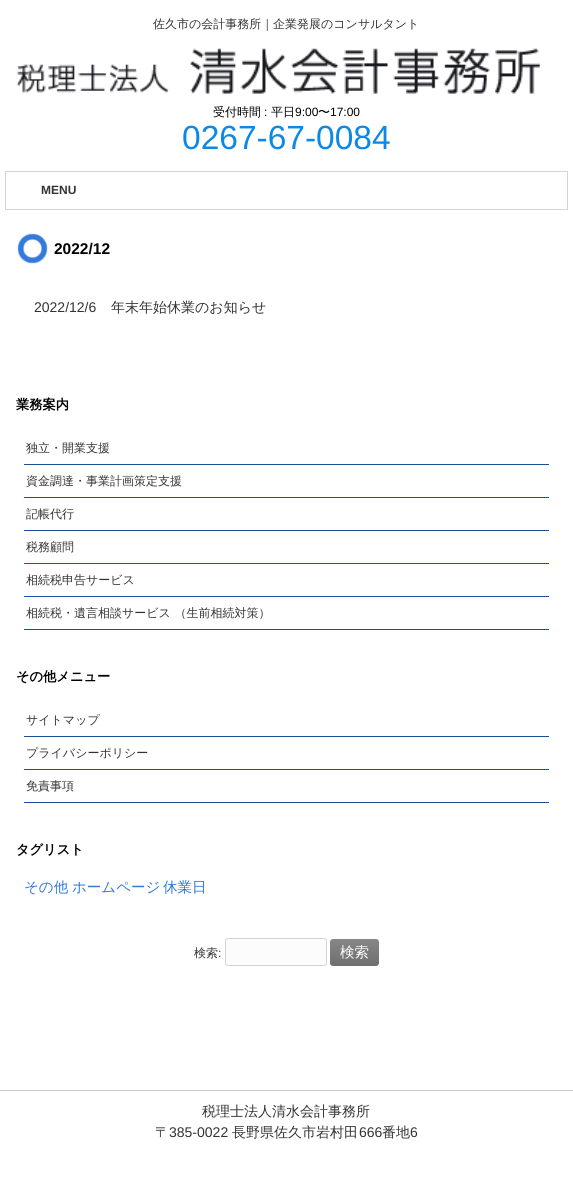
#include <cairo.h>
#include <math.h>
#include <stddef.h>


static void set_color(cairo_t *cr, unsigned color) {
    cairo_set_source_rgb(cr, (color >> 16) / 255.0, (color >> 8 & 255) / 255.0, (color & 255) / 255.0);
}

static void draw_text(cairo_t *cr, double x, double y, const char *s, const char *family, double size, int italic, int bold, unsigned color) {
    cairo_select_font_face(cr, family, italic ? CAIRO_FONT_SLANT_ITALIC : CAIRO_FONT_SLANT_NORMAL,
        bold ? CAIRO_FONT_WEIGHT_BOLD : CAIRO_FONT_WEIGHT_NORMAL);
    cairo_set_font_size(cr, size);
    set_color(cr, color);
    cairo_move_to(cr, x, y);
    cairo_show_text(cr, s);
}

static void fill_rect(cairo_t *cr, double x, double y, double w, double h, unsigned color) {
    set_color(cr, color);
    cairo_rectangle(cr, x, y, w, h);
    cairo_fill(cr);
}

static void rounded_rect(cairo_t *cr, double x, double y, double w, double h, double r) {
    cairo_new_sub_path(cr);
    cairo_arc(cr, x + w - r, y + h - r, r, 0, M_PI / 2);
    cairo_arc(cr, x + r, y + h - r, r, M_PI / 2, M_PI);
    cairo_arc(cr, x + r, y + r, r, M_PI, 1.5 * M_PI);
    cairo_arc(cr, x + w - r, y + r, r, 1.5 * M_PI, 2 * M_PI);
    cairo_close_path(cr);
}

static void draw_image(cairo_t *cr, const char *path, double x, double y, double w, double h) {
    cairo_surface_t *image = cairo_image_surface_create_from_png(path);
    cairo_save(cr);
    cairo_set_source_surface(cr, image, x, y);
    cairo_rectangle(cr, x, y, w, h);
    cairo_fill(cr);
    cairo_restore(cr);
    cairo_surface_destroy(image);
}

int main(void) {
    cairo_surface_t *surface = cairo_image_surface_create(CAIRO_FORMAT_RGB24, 573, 1181);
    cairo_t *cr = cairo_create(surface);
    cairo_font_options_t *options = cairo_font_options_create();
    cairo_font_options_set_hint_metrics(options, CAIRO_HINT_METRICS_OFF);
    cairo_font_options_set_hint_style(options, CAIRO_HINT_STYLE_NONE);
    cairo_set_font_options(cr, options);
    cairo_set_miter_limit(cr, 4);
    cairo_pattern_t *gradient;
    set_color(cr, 0xFFFFFF);
    cairo_paint(cr);
    draw_text(cr, 153, 28, "佐久市の会計事務所｜企業発展のコンサルタント", "WenQuanYi Zen Hei Medium", 12, 0, 0, 0x333333);
    draw_image(cr, "assets/img1.png", 16, 48, 524, 46);
    draw_text(cr, 213, 116, "受付時間", "WenQuanYi Zen Hei Medium", 12, 0, 0, 0x000000);
    draw_text(cr, 264, 116, ":", "Liberation Sans", 12, 0, 0, 0x000000);
    draw_text(cr, 271, 116, "平日", "WenQuanYi Zen Hei Medium", 12, 0, 0, 0x000000);
    draw_text(cr, 295, 116, "9:00", "Liberation Sans", 12, 0, 0, 0x000000);
    draw_text(cr, 318, 116, "〜", "WenQuanYi Zen Hei Medium", 12, 0, 0, 0x000000);
    draw_text(cr, 330, 116, "17:00", "Liberation Sans", 12, 0, 0, 0x000000);
    draw_text(cr, 182, 149, "0267-67-0084", "Liberation Sans", 33.5, 0, 0, 0x0C89E7);
    cairo_rectangle(cr, 5.5, 171.5, 562, 38);
    set_color(cr, 0xD5D5D5);
    cairo_set_line_width(cr, 1);
    cairo_stroke(cr);
    draw_text(cr, 41, 194, "MENU", "Liberation Sans", 12, 0, 1, 0x333333);
    draw_image(cr, "assets/img2.png", 17, 233, 31, 31);
    draw_text(cr, 54, 254, "2022/12", "Liberation Sans", 15.5, 0, 1, 0x000000);
    draw_text(cr, 34, 312, "2022/12/6", "Liberation Sans", 14, 0, 0, 0x333333);
    draw_text(cr, 111, 312, "年末年始休業のお知らせ", "WenQuanYi Zen Hei Medium", 14, 0, 0, 0x333333);
    draw_text(cr, 16, 409, "業務案内", "WenQuanYi Zen Hei", 13.25, 0, 1, 0x000000);
    fill_rect(cr, 24, 464, 525, 1, 0x1B4F96);
    draw_text(cr, 26, 452, "独立・開業支援", "WenQuanYi Zen Hei Medium", 12, 0, 0, 0x333333);
    fill_rect(cr, 24, 497, 525, 1, 0x1B4F96);
    draw_text(cr, 26, 485, "資金調達・事業計画策定支援", "WenQuanYi Zen Hei Medium", 12, 0, 0, 0x333333);
    fill_rect(cr, 24, 530, 525, 1, 0x1B4F96);
    draw_text(cr, 26, 518, "記帳代行", "WenQuanYi Zen Hei Medium", 12, 0, 0, 0x333333);
    fill_rect(cr, 24, 563, 525, 1, 0x1B4F96);
    draw_text(cr, 26, 551, "税務顧問", "WenQuanYi Zen Hei Medium", 12, 0, 0, 0x333333);
    fill_rect(cr, 24, 596, 525, 1, 0x1B4F96);
    draw_text(cr, 26, 584, "相続税申告サービス", "WenQuanYi Zen Hei Medium", 12, 0, 0, 0x333333);
    fill_rect(cr, 24, 629, 525, 1, 0x1B4F96);
    draw_text(cr, 26, 617, "相続税・遺言相談サービス （生前相続対策）", "WenQuanYi Zen Hei Medium", 12, 0, 0, 0x333333);
    draw_text(cr, 16, 681, "その他メニュー", "WenQuanYi Zen Hei", 13.25, 0, 1, 0x000000);
    fill_rect(cr, 24, 736, 525, 1, 0x1B4F96);
    draw_text(cr, 26, 724, "サイトマップ", "WenQuanYi Zen Hei Medium", 12, 0, 0, 0x333333);
    fill_rect(cr, 24, 769, 525, 1, 0x1B4F96);
    draw_text(cr, 26, 757, "プライバシーポリシー", "WenQuanYi Zen Hei Medium", 12, 0, 0, 0x333333);
    fill_rect(cr, 24, 802, 525, 1, 0x1B4F96);
    draw_text(cr, 26, 790, "免責事項", "WenQuanYi Zen Hei Medium", 12, 0, 0, 0x333333);
    draw_text(cr, 16, 854, "タグリスト", "WenQuanYi Zen Hei", 13.25, 0, 1, 0x000000);
    draw_text(cr, 24, 892, "その他", "WenQuanYi Zen Hei Medium", 14.5, 0, 0, 0x3279D8);
    draw_text(cr, 72, 892, "ホームページ", "WenQuanYi Zen Hei Medium", 14.5, 0, 0, 0x3279D8);
    draw_text(cr, 163, 892, "休業日", "WenQuanYi Zen Hei Medium", 14.5, 0, 0, 0x3279D8);
    draw_text(cr, 194, 957, "検索", "WenQuanYi Zen Hei Medium", 12, 0, 0, 0x333333);
    draw_text(cr, 218, 957, ":", "Liberation Sans", 12, 0, 0, 0x333333);
    set_color(cr, 0xFCFCFC);
    rounded_rect(cr, 225.5, 938.5, 101, 27, 2.5);
    cairo_fill_preserve(cr);
    set_color(cr, 0xD4D4D7);
    cairo_stroke(cr);
    gradient = cairo_pattern_create_linear(355, 939, 355, 966);
    cairo_pattern_add_color_stop_rgba(gradient, 0, 0.529, 0.529, 0.529, 1);
    cairo_pattern_add_color_stop_rgba(gradient, 1, 0.435, 0.435, 0.435, 1);
    cairo_set_source(cr, gradient);
    cairo_pattern_destroy(gradient);
    rounded_rect(cr, 330, 939, 49, 27, 3);
    cairo_fill(cr);
    draw_text(cr, 340, 957, "検索", "WenQuanYi Zen Hei Medium", 14.5, 0, 0, 0xFFFFFF);
    fill_rect(cr, 0, 1090, 573, 1, 0xCCCCCC);
    draw_text(cr, 202, 1116, "税理士法人清水会計事務所", "WenQuanYi Zen Hei Medium", 14, 0, 0, 0x333333);
    draw_text(cr, 155, 1137, "〒", "WenQuanYi Zen Hei Medium", 14, 0, 0, 0x333333);
    draw_text(cr, 169, 1137, "385-0022", "Liberation Sans", 14, 0, 0, 0x333333);
    draw_text(cr, 232, 1137, "長野県佐久市岩村田", "WenQuanYi Zen Hei Medium", 14, 0, 0, 0x333333);
    draw_text(cr, 359, 1137, "666", "Liberation Sans", 14, 0, 0, 0x333333);
    draw_text(cr, 382, 1137, "番地", "WenQuanYi Zen Hei Medium", 14, 0, 0, 0x333333);
    draw_text(cr, 410, 1137, "6", "Liberation Sans", 14, 0, 0, 0x333333);
    cairo_surface_write_to_png(surface, "output.png");
    cairo_font_options_destroy(options);
    cairo_destroy(cr);
    cairo_surface_destroy(surface);
    return 0;
}
